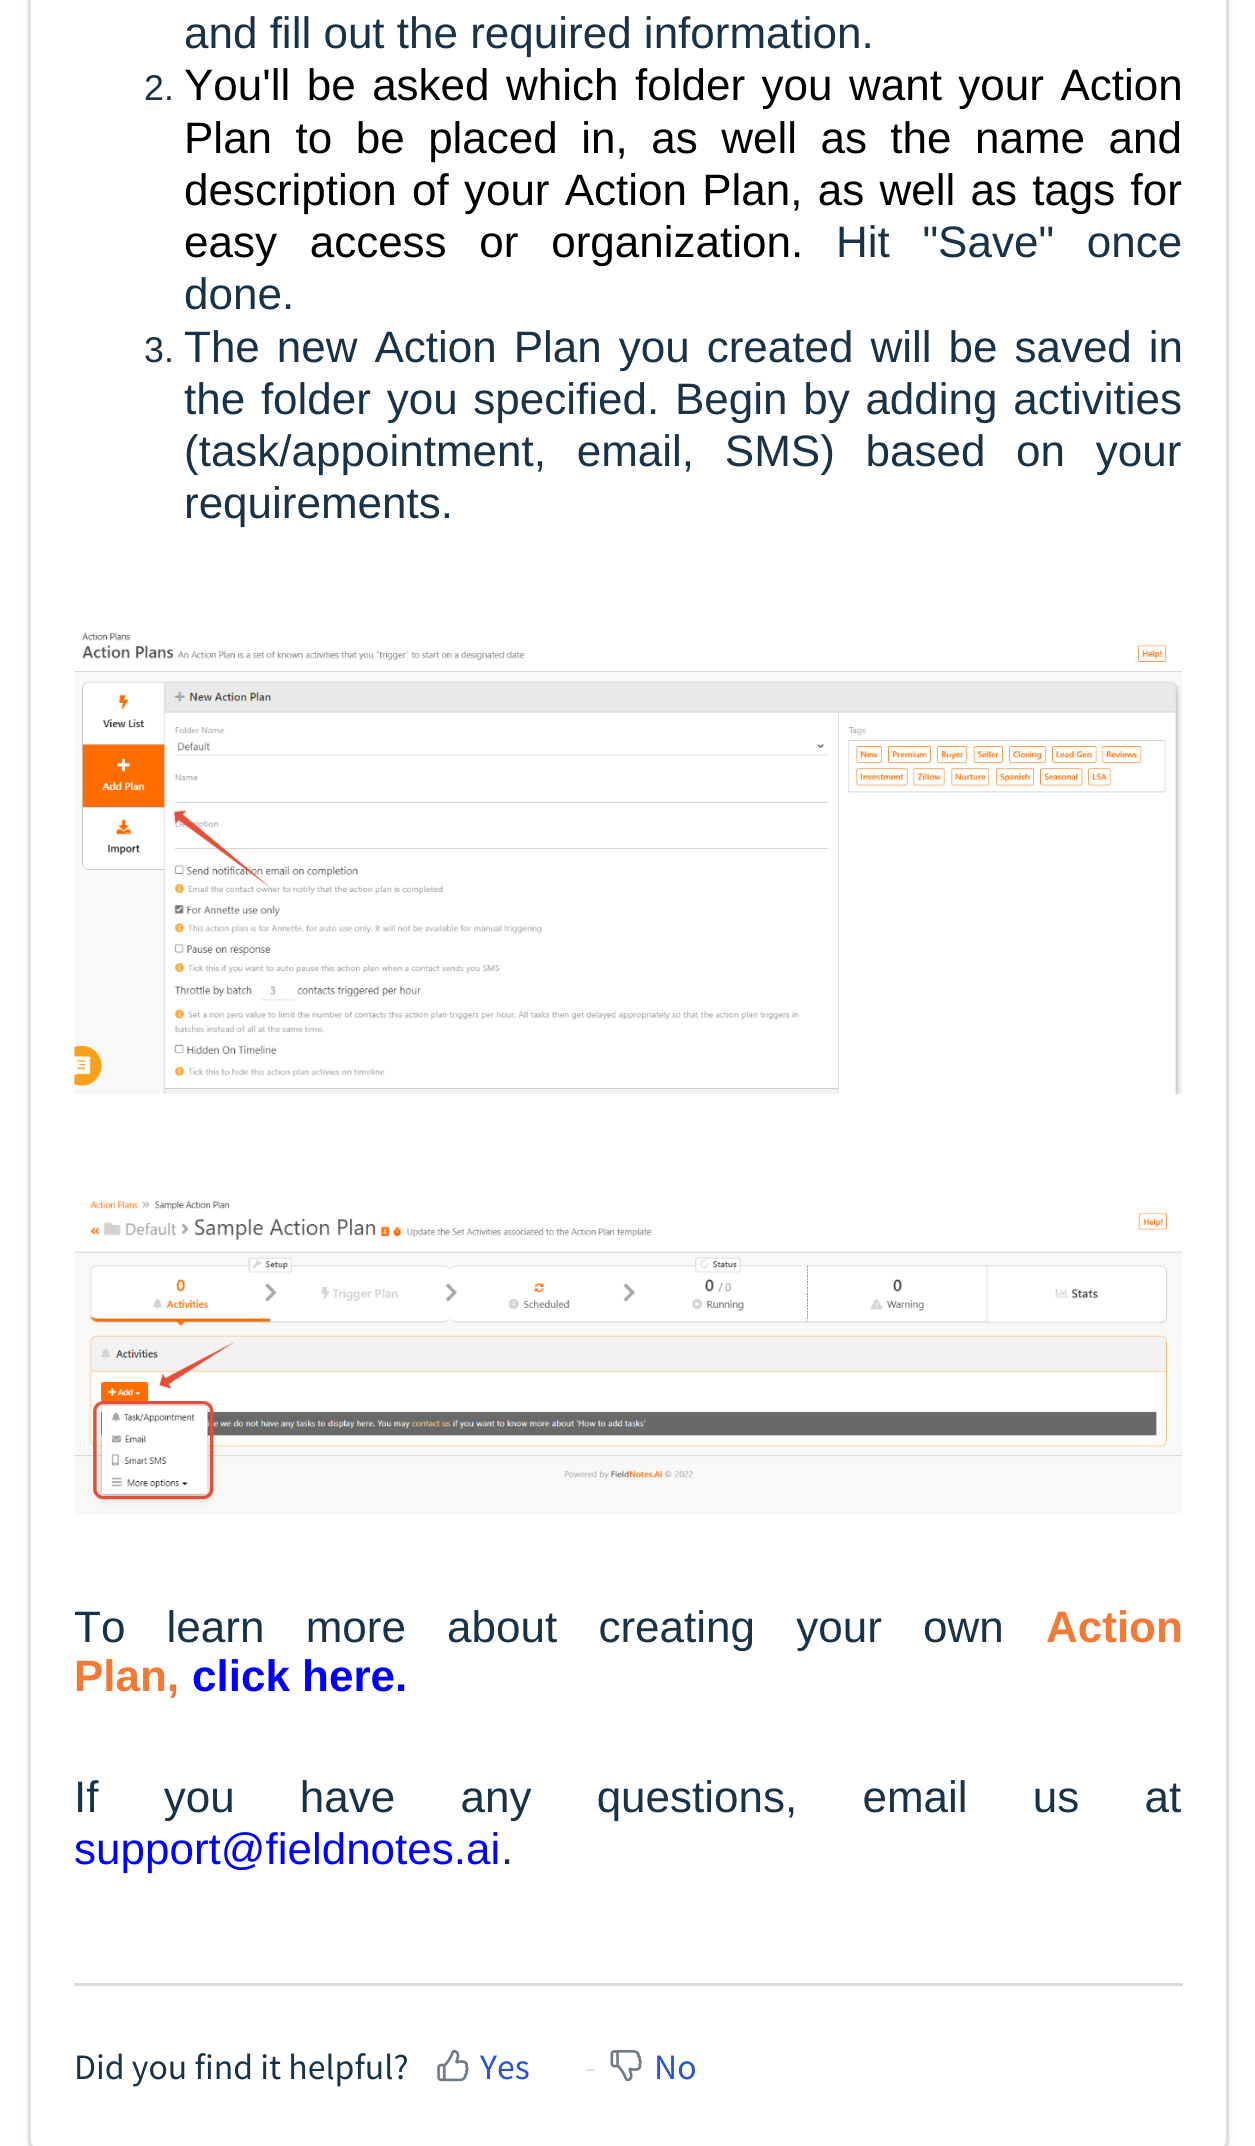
#include <cairo.h>
#include <math.h>
#include <stddef.h>


static void set_color(cairo_t *cr, unsigned color) {
    cairo_set_source_rgb(cr, (color >> 16) / 255.0, (color >> 8 & 255) / 255.0, (color & 255) / 255.0);
}

static void draw_text(cairo_t *cr, double x, double y, const char *s, const char *family, double size, int italic, int bold, unsigned color) {
    cairo_select_font_face(cr, family, italic ? CAIRO_FONT_SLANT_ITALIC : CAIRO_FONT_SLANT_NORMAL,
        bold ? CAIRO_FONT_WEIGHT_BOLD : CAIRO_FONT_WEIGHT_NORMAL);
    cairo_set_font_size(cr, size);
    set_color(cr, color);
    cairo_move_to(cr, x, y);
    cairo_show_text(cr, s);
}

static void draw_spaced(cairo_t *cr, double x, double y, const char *s, double letter, double word) {
    cairo_move_to(cr, x, y);
    while (*s) {
        char ch[5] = {0};
        int n = 0;
        do ch[n++] = *s++; while ((*s & 0xC0) == 0x80);
        cairo_show_text(cr, ch);
        cairo_rel_move_to(cr, letter + word * (*ch == ' '), 0);
    }
}

static void fill_rect(cairo_t *cr, double x, double y, double w, double h, unsigned color) {
    set_color(cr, color);
    cairo_rectangle(cr, x, y, w, h);
    cairo_fill(cr);
}

static void rounded_rect(cairo_t *cr, double x, double y, double w, double h, double r) {
    cairo_new_sub_path(cr);
    cairo_arc(cr, x + w - r, y + h - r, r, 0, M_PI / 2);
    cairo_arc(cr, x + r, y + h - r, r, M_PI / 2, M_PI);
    cairo_arc(cr, x + r, y + r, r, M_PI, 1.5 * M_PI);
    cairo_arc(cr, x + w - r, y + r, r, 1.5 * M_PI, 2 * M_PI);
    cairo_close_path(cr);
}

static void draw_shadow(cairo_t *cr, double x, double y, double w, double h, double r, double blur, double alpha) {
    cairo_push_group_with_content(cr, CAIRO_CONTENT_ALPHA);
    cairo_set_operator(cr, CAIRO_OPERATOR_SOURCE);
    for (int i = 15; i >= -15 && fmin(w, h) + blur * i / 3 > 0; i -= 2) {
        double e = blur * i / 6;
        cairo_set_source_rgba(cr, 0, 0, 0, alpha * erfc((i - 1) / 8.5) / 2);
        rounded_rect(cr, x - e, y - e, w + 2 * e, h + 2 * e, fmax(0, fmin(r + e + blur * .6, fmin(w, h) / 2 + e)));
        cairo_fill(cr);
    }
    cairo_pattern_t *soft = cairo_pop_group(cr);
    cairo_mask(cr, soft);
    cairo_pattern_destroy(soft);
}

static void draw_image(cairo_t *cr, const char *path, double x, double y, double w, double h) {
    cairo_surface_t *image = cairo_image_surface_create_from_png(path);
    cairo_save(cr);
    cairo_set_source_surface(cr, image, x, y);
    cairo_rectangle(cr, x, y, w, h);
    cairo_fill(cr);
    cairo_restore(cr);
    cairo_surface_destroy(image);
}

int main(void) {
    cairo_surface_t *surface = cairo_image_surface_create(CAIRO_FORMAT_RGB24, 1255, 2146);
    cairo_t *cr = cairo_create(surface);
    cairo_font_options_t *options = cairo_font_options_create();
    cairo_font_options_set_hint_metrics(options, CAIRO_HINT_METRICS_OFF);
    cairo_font_options_set_hint_style(options, CAIRO_HINT_STYLE_NONE);
    cairo_set_font_options(cr, options);
    cairo_set_miter_limit(cr, 4);
    set_color(cr, 0xFFFFFF);
    cairo_paint(cr);
    fill_rect(cr, 28, 2139, 1201, 7, 0xF8F9FA);
    set_color(cr, 0x3F3F44);
    draw_shadow(cr, 28, -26, 1201, 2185, 17, 3, 0.15);
    set_color(cr, 0xFFFFFF);
    rounded_rect(cr, 29.5, -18.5, 1198, 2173, 15.5);
    cairo_fill_preserve(cr);
    set_color(cr, 0xDADFE3);
    cairo_set_line_width(cr, 3);
    cairo_stroke(cr);
    draw_text(cr, 184, 48, "and fill out the required information.", "Liberation Sans", 44, 0, 0, 0x183247);
    draw_text(cr, 144, 100, "2.", "Liberation Sans", 35.75, 0, 0, 0x183247);
    cairo_set_font_size(cr, 44);
    set_color(cr, 0x000000);
    draw_spaced(cr, 184, 100, "You'll be asked which folder you want your Action", 0, 4.25);
    draw_spaced(cr, 184, 153, "Plan to be placed in, as well as the name and", 0, 11.25);
    draw_spaced(cr, 184, 205, "description of your Action Plan, as well as tags for", 0, 3);
    draw_spaced(cr, 184, 257, "easy access or organization.", 0, 20.5);
    set_color(cr, 0x183247);
    draw_spaced(cr, 836, 257, "Hit \"Save\" once", 0, 20.5);
    draw_text(cr, 184, 309, "done.", "Liberation Sans", 44, 0, 0, 0x183247);
    draw_text(cr, 144, 362, "3.", "Liberation Sans", 35.75, 0, 0, 0x183247);
    cairo_set_font_size(cr, 44);
    draw_spaced(cr, 184, 362, "The new Action Plan you created will be saved in", 0, 4.75);
    draw_spaced(cr, 184, 414, "the folder you specified. Begin by adding activities", 0, 3.5);
    draw_spaced(cr, 184, 466, "(task/appointment, email, SMS) based on your", 0, 18.5);
    draw_text(cr, 184, 518, "requirements.", "Liberation Sans", 44, 0, 0, 0x183247);
    draw_image(cr, "assets/img1.png", 74, 632, 1109, 462);
    draw_image(cr, "assets/img2.png", 74, 1200, 1109, 315);
    draw_spaced(cr, 74, 1642, "To learn more about creating your own", 0, 29);
    draw_text(cr, 1046, 1642, "Action", "Liberation Sans", 44, 0, 1, 0xF37934);
    draw_text(cr, 74, 1691, "Plan,", "Liberation Sans", 44, 0, 1, 0xF37934);
    draw_text(cr, 192, 1691, "click here.", "Liberation Sans", 44, 0, 1, 0x0000FF);
    cairo_select_font_face(cr, "Liberation Sans", CAIRO_FONT_SLANT_NORMAL, CAIRO_FONT_WEIGHT_NORMAL);
    set_color(cr, 0x183247);
    draw_spaced(cr, 74, 1812, "If you have any questions, email us at", 0, 53);
    draw_text(cr, 74, 1864, "support@fieldnotes.ai", "Liberation Sans", 44, 0, 0, 0x0000FF);
    draw_text(cr, 501, 1864, ".", "Liberation Sans", 44, 0, 0, 0x183247);
    fill_rect(cr, 74, 1983, 1109, 3, 0xDCDCDC);
    draw_text(cr, 74, 2079, "Did you find it helpful?", "Source Sans Pro", 35.75, 0, 0, 0x183247);
    draw_image(cr, "assets/img3.png", 437, 2050, 32, 32);
    draw_text(cr, 480, 2079, "Yes", "Source Sans Pro", 35.75, 0, 0, 0x2753D7);
    draw_text(cr, 585, 2079, "-", "Source Sans Pro", 35.75, 0, 0, 0xE5E5E5);
    draw_image(cr, "assets/img4.png", 610, 2049, 32, 33);
    draw_text(cr, 654, 2079, "No", "Source Sans Pro", 35.75, 0, 0, 0x2753D7);
    cairo_surface_write_to_png(surface, "output.png");
    cairo_font_options_destroy(options);
    cairo_destroy(cr);
    cairo_surface_destroy(surface);
    return 0;
}
